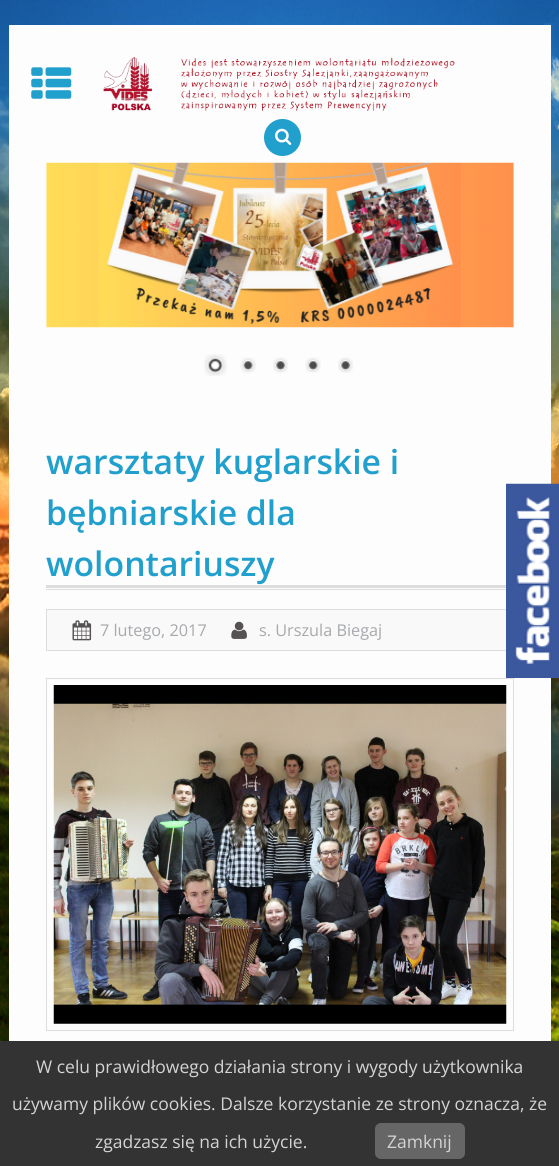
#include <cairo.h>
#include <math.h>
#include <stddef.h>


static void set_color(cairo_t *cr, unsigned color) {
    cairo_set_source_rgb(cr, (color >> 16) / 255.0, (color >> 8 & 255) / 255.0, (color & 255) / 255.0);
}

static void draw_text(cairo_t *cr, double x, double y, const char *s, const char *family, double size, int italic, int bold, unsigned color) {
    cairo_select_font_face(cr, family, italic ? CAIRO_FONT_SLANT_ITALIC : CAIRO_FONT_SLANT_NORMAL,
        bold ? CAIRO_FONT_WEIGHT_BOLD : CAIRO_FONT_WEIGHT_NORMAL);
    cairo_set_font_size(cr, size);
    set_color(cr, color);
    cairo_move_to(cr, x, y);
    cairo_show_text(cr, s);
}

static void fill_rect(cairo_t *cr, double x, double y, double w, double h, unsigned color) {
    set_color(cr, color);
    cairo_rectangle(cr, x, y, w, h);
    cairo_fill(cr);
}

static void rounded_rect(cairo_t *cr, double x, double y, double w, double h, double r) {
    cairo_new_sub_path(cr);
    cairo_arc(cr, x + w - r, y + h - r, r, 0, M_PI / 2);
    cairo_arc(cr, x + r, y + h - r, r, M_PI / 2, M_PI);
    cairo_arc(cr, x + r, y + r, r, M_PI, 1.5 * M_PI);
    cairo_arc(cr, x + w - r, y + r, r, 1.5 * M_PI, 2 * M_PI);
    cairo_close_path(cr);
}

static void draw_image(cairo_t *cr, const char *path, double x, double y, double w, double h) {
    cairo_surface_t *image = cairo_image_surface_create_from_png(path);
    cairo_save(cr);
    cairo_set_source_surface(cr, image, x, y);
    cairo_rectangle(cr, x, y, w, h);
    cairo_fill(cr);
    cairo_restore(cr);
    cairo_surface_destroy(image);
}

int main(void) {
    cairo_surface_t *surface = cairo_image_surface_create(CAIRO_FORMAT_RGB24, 559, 1166);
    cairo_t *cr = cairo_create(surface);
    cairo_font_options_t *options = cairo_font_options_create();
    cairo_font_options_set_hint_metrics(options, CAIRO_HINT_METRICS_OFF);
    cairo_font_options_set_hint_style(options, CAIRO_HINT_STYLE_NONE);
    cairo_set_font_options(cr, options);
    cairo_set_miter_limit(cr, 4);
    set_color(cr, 0xFFFFFF);
    cairo_paint(cr);
    draw_image(cr, "assets/img1.png", 0, 0, 559, 1041);
    fill_rect(cr, 9, 25, 542, 1016, 0xFDFDFD);
    draw_image(cr, "assets/img2.png", 103, 57, 352, 54);
    set_color(cr, 0x219FCD);
    cairo_arc(cr, 282.5, 137.5, 18.5, 0, 2 * M_PI);
    cairo_fill(cr);
    draw_image(cr, "assets/img3.png", 275, 128, 17, 17);
    draw_image(cr, "assets/img4.png", 46, 162, 468, 166);
    draw_image(cr, "assets/img5.png", 204, 354, 23, 22);
    draw_image(cr, "assets/img6.png", 240, 357, 16, 16);
    draw_image(cr, "assets/img7.png", 273, 357, 15, 16);
    draw_image(cr, "assets/img6.png", 305, 357, 16, 16);
    draw_image(cr, "assets/img7.png", 338, 357, 15, 16);
    draw_image(cr, "assets/img8.png", 31, 67, 41, 32);
    fill_rect(cr, 46, 589, 468, 1, 0xDDDDDD);
    draw_text(cr, 46, 474, "warsztaty kuglarskie i", "Open Sans SemiBold", 33.75, 0, 0, 0x219FCD);
    draw_text(cr, 46, 525, "bębniarskie dla", "Open Sans SemiBold", 33.75, 0, 0, 0x219FCD);
    draw_text(cr, 46, 576, "wolontariuszy", "Open Sans SemiBold", 33.75, 0, 0, 0x219FCD);
    fill_rect(cr, 46, 585, 468, 3, 0xDDDDDD);
    fill_rect(cr, 47, 610, 459, 40, 0xF9F9F9);
    cairo_rectangle(cr, 46.5, 609.5, 467, 41);
    set_color(cr, 0xDDDDDD);
    cairo_set_line_width(cr, 1);
    cairo_stroke(cr);
    draw_image(cr, "assets/img9.png", 72, 620, 20, 21);
    draw_text(cr, 100, 636, "7 lutego, 2017", "Open Sans", 16.25, 0, 0, 0xA7A9AC);
    draw_image(cr, "assets/img10.png", 231, 621, 16, 18);
    draw_text(cr, 259, 636, "s. Urszula Biegaj", "Open Sans", 16.25, 0, 0, 0xA7A9AC);
    cairo_rectangle(cr, 46.5, 678.5, 467, 352);
    set_color(cr, 0xDDDDDD);
    cairo_stroke(cr);
    draw_image(cr, "assets/img11.png", 53, 685, 454, 339);
    draw_image(cr, "assets/img12.png", 506, 483, 53, 195);
    fill_rect(cr, 0, 1041, 559, 125, 0x333333);
    draw_text(cr, 36, 1073, "W celu prawidłowego działania strony i wygody użytkownika", "Open Sans", 17.5, 0, 0, 0xD4D4D4);
    draw_text(cr, 12, 1110, "używamy plików cookies. Dalsze korzystanie ze strony oznacza, że", "Open Sans", 17.5, 0, 0, 0xD4D4D4);
    draw_text(cr, 95, 1148, "zgadzasz się na ich użycie.", "Open Sans", 17.5, 0, 0, 0xD4D4D4);
    set_color(cr, 0x666666);
    rounded_rect(cr, 375, 1123, 90, 36, 6);
    cairo_fill(cr);
    draw_text(cr, 387, 1148, "Zamknij", "Open Sans", 17.5, 0, 0, 0xD4D4D4);
    cairo_surface_write_to_png(surface, "output.png");
    cairo_font_options_destroy(options);
    cairo_destroy(cr);
    cairo_surface_destroy(surface);
    return 0;
}
